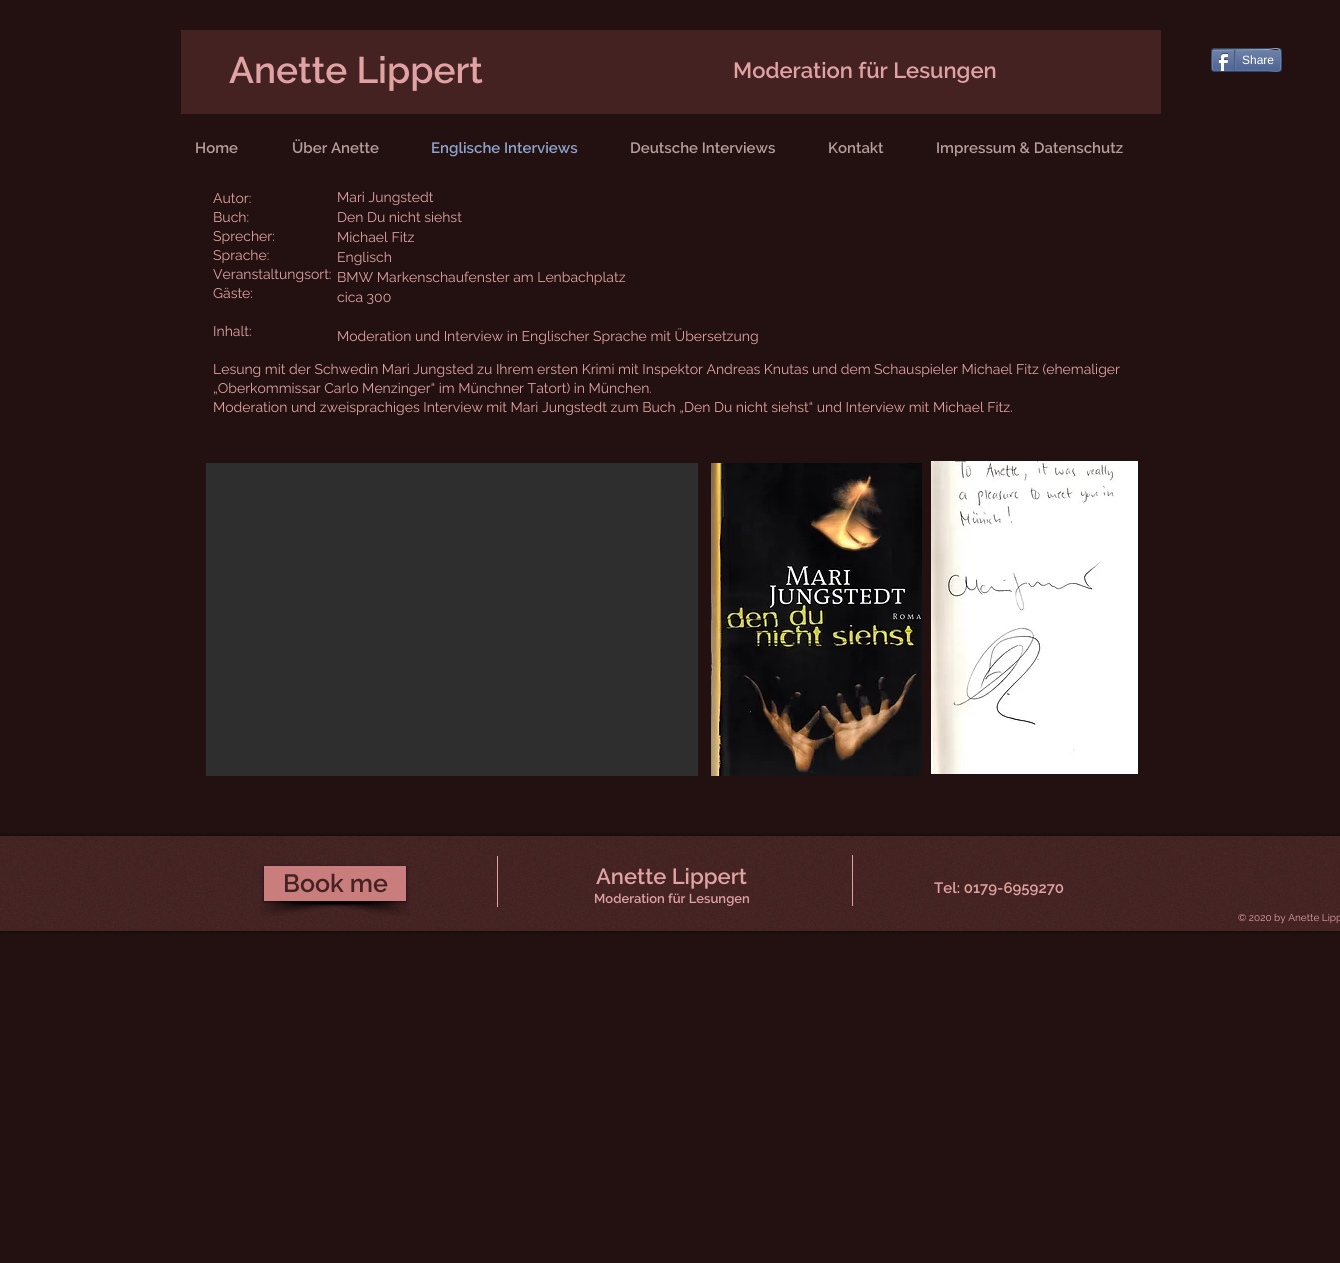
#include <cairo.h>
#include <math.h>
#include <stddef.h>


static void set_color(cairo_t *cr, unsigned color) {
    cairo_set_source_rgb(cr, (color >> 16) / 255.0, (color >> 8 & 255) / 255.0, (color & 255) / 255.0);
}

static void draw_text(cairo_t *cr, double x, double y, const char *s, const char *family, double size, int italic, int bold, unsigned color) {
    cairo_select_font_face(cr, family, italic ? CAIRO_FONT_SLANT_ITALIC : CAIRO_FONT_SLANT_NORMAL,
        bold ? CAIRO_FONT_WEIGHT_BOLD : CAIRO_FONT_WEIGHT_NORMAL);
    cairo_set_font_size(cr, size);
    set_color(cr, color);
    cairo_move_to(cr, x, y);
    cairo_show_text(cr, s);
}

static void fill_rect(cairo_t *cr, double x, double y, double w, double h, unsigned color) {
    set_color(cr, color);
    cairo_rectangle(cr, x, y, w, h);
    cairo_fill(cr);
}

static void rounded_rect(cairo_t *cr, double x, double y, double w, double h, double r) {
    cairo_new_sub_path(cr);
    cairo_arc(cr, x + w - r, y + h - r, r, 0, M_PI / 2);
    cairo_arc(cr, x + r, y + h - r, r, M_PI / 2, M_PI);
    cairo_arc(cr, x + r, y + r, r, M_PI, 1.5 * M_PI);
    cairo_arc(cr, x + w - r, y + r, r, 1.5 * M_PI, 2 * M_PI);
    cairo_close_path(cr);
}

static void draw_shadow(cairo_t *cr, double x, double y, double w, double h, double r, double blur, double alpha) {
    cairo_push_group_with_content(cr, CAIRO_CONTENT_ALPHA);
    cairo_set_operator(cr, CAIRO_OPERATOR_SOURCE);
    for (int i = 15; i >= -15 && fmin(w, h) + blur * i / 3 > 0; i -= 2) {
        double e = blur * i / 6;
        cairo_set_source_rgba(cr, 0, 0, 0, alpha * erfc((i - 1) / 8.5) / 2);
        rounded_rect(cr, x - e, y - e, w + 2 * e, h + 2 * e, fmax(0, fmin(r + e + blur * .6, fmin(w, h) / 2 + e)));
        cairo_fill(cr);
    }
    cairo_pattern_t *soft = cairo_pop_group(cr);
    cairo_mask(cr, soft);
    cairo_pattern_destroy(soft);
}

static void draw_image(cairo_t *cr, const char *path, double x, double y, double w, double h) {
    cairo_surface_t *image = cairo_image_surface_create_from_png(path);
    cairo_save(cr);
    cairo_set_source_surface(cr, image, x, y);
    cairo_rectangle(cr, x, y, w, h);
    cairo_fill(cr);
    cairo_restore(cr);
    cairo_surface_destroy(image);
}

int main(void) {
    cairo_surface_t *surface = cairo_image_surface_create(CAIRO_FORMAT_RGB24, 1340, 1263);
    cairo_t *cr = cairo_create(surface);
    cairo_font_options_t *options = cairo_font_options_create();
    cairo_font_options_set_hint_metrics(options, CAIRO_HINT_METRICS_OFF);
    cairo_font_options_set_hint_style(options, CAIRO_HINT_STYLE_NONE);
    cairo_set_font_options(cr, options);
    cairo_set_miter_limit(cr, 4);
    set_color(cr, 0x231111);
    cairo_paint(cr);
    fill_rect(cr, 181, 30, 980, 84, 0x452222);
    draw_text(cr, 229, 83, "Anette Lippert", "Raleway SemiBold", 37, 0, 0, 0xE0A2A2);
    draw_text(cr, 733, 78, "Moderation für Lesungen", "Raleway SemiBold", 22, 0, 0, 0xE0A2A2);
    rounded_rect(cr, 1211.5, 48.5, 70, 23, 2.5);
    set_color(cr, 0x2D4565);
    cairo_set_line_width(cr, 1);
    cairo_stroke(cr);
    draw_image(cr, "assets/img1.png", 1212, 50, 69, 21);
    cairo_new_path(cr);
    cairo_move_to(cr, 1213, 50);
    cairo_line_to(cr, 1268, 49.5);
    cairo_curve_to(cr, 1272, 49.5, 1277, 47, 1280, 50);
    set_color(cr, 0x9AABC6);
    cairo_stroke(cr);
    cairo_new_path(cr);
    cairo_move_to(cr, 1280, 50);
    cairo_curve_to(cr, 1281, 50.5, 1281, 69.5, 1280, 70);
    set_color(cr, 0x6F83AD);
    cairo_stroke(cr);
    cairo_new_path(cr);
    cairo_move_to(cr, 1280, 70);
    cairo_curve_to(cr, 1277, 73, 1272, 70.5, 1268, 70.5);
    cairo_line_to(cr, 1213, 70);
    set_color(cr, 0x6176A3);
    cairo_stroke(cr);
    cairo_new_path(cr);
    cairo_move_to(cr, 1213, 70);
    cairo_curve_to(cr, 1212, 69.5, 1212, 50.5, 1213, 50);
    set_color(cr, 0x6F83AD);
    cairo_stroke(cr);
    draw_image(cr, "assets/img2.png", 1218, 53, 10, 18);
    fill_rect(cr, 1234, 50, 1, 21, 0x425E85);
    draw_text(cr, 1242, 64, "Share", "Liberation Sans", 12, 0, 0, 0xFFFFFF);
    fill_rect(cr, 1235, 50, 1, 20, 0x6176A3);
    draw_text(cr, 195, 153, "Home", "Raleway SemiBold", 15, 0, 0, 0xB89C9C);
    draw_text(cr, 292, 153, "Über Anette", "Raleway SemiBold", 15, 0, 0, 0xB89C9C);
    draw_text(cr, 431, 153, "Englische Interviews", "Raleway SemiBold", 15, 0, 0, 0x8FA4CD);
    draw_text(cr, 630, 153, "Deutsche Interviews", "Raleway SemiBold", 15, 0, 0, 0xB89C9C);
    draw_text(cr, 828, 153, "Kontakt", "Raleway SemiBold", 15, 0, 0, 0xB89C9C);
    draw_text(cr, 936, 153, "Impressum & Datenschutz", "Raleway SemiBold", 15, 0, 0, 0xB89C9C);
    draw_text(cr, 337, 202, "Mari Jungstedt", "Raleway", 14, 0, 0, 0xE0A2A2);
    draw_text(cr, 337, 222, "Den Du nicht siehst", "Raleway", 14, 0, 0, 0xE0A2A2);
    draw_text(cr, 337, 242, "Michael Fitz", "Raleway", 14, 0, 0, 0xE0A2A2);
    draw_text(cr, 337, 262, "Englisch", "Raleway", 14, 0, 0, 0xE0A2A2);
    draw_text(cr, 337, 282, "BMW Markenschaufenster am Lenbachplatz", "Raleway", 14, 0, 0, 0xE0A2A2);
    draw_text(cr, 337, 302, "cica 300", "Raleway", 14, 0, 0, 0xE0A2A2);
    draw_text(cr, 337, 341, "Moderation und Interview in Englischer Sprache mit Übersetzung", "Raleway", 14, 0, 0, 0xE0A2A2);
    draw_text(cr, 213, 203, "Autor:", "Raleway", 14, 0, 0, 0xE0A2A2);
    draw_text(cr, 213, 222, "Buch:", "Raleway", 14, 0, 0, 0xE0A2A2);
    draw_text(cr, 213, 241, "Sprecher:", "Raleway", 14, 0, 0, 0xE0A2A2);
    draw_text(cr, 213, 260, "Sprache:", "Raleway", 14, 0, 0, 0xE0A2A2);
    draw_text(cr, 213, 279, "Veranstaltungsort:", "Raleway", 14, 0, 0, 0xE0A2A2);
    draw_text(cr, 213, 298, "Gäste:", "Raleway", 14, 0, 0, 0xE0A2A2);
    draw_text(cr, 213, 336, "Inhalt:", "Raleway", 14, 0, 0, 0xE0A2A2);
    draw_text(cr, 213, 374, "Lesung mit der Schwedin Mari Jungsted zu Ihrem ersten Krimi mit Inspektor Andreas Knutas und dem Schauspieler Michael Fitz (ehemaliger", "Raleway", 14, 0, 0, 0xE0A2A2);
    draw_text(cr, 213, 393, "„Oberkommissar Carlo Menzinger“ im Münchner Tatort) in München.", "Raleway", 14, 0, 0, 0xE0A2A2);
    draw_text(cr, 213, 412, "Moderation und zweisprachiges Interview mit Mari Jungstedt zum Buch „Den Du nicht siehst“ und Interview mit Michael Fitz.", "Raleway", 14, 0, 0, 0xE0A2A2);
    fill_rect(cr, 206, 463, 492, 313, 0x2F2E2E);
    draw_image(cr, "assets/img3.png", 711, 463, 211, 313);
    draw_image(cr, "assets/img4.png", 931, 461, 207, 313);
    set_color(cr, 0x000000);
    draw_shadow(cr, 0, 836, 1340, 95, 0, 2.5, 0.7);
    fill_rect(cr, 0, 836, 1340, 95, 0x452222);
    draw_image(cr, "assets/img5.png", 0, 836, 1340, 95);
    draw_image(cr, "assets/img6.png", 260, 901, 134, 15);
    draw_image(cr, "assets/img7.png", 282, 901, 128, 15);
    set_color(cr, 0x000000);
    draw_shadow(cr, 264, 867, 142, 35, 0, 2, 0.6);
    fill_rect(cr, 264, 866, 142, 35, 0xC97D7D);
    draw_text(cr, 283, 892, "Book me", "Raleway SemiBold", 25, 0, 0, 0x452222);
    fill_rect(cr, 497, 856, 1, 51, 0xE0A2A2);
    draw_text(cr, 596, 884, "Anette Lippert", "Raleway SemiBold", 22, 0, 0, 0xE0A2A2);
    fill_rect(cr, 852, 855, 1, 51, 0xE0A2A2);
    draw_text(cr, 934, 893, "Tel: 0179-6959270", "Raleway SemiBold", 15, 0, 0, 0xE0A2A2);
    draw_text(cr, 594, 903, "Moderation für Lesungen", "Raleway SemiBold", 13, 0, 0, 0xE0A2A2);
    draw_text(cr, 1238, 921, "© 2020 by Anette Lipp", "Raleway", 10, 0, 0, 0xE0A2A2);
    cairo_surface_write_to_png(surface, "output.png");
    cairo_font_options_destroy(options);
    cairo_destroy(cr);
    cairo_surface_destroy(surface);
    return 0;
}
